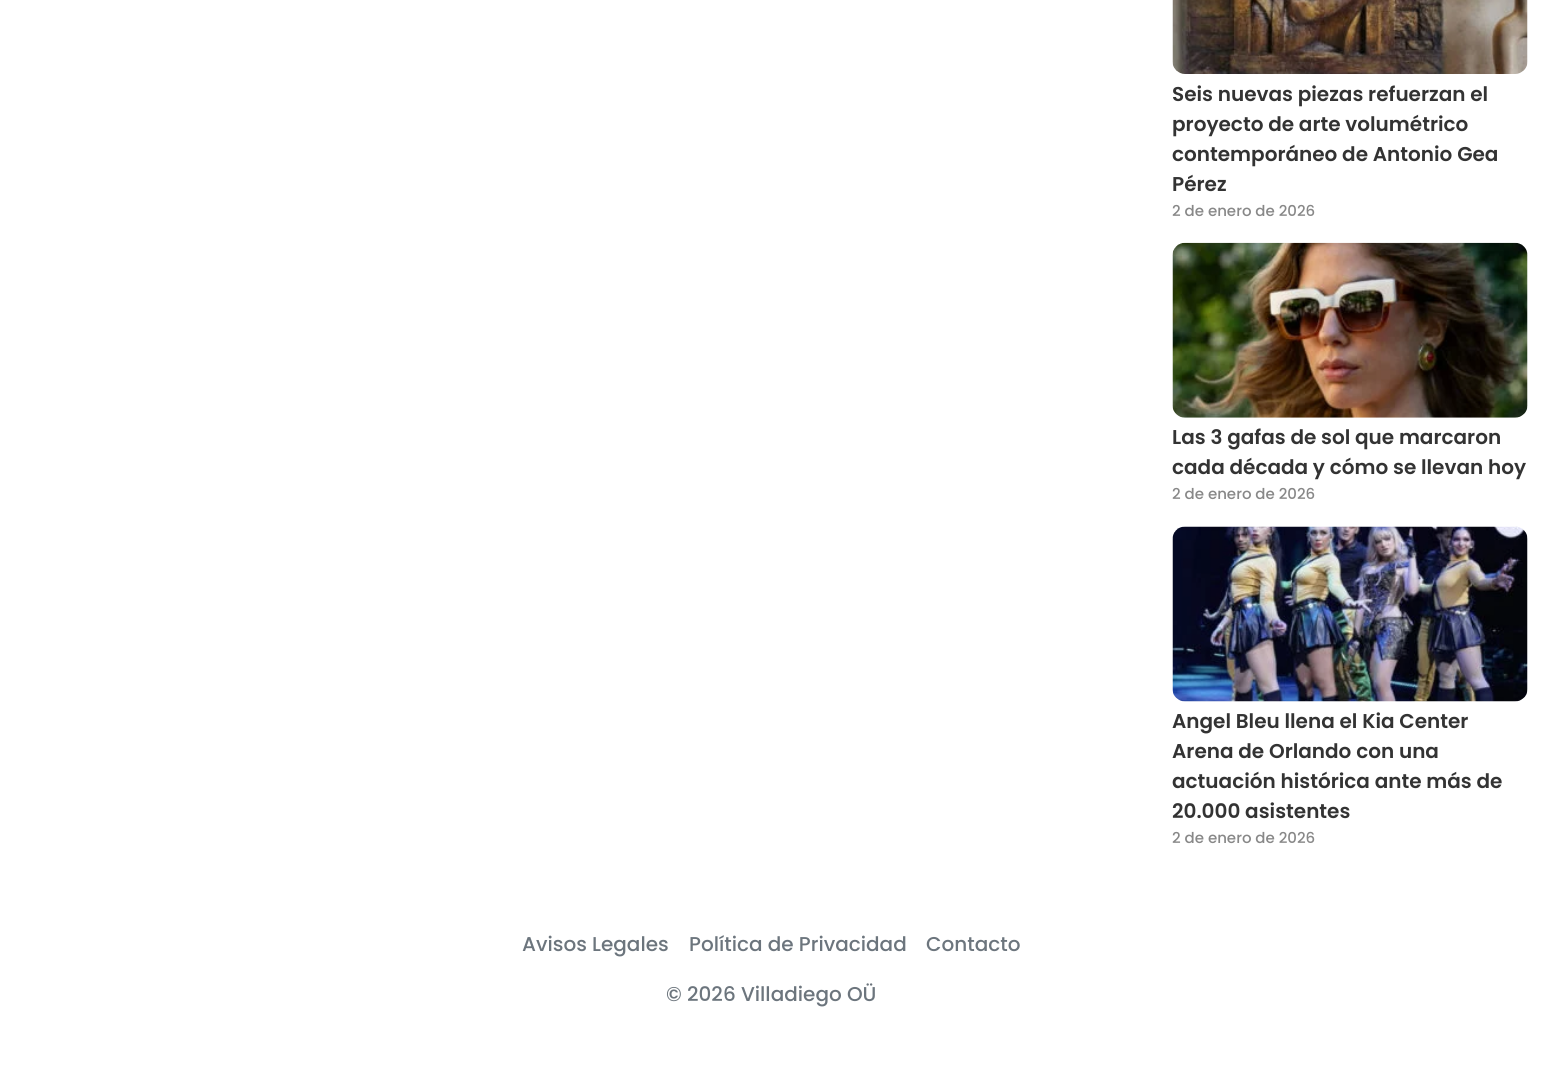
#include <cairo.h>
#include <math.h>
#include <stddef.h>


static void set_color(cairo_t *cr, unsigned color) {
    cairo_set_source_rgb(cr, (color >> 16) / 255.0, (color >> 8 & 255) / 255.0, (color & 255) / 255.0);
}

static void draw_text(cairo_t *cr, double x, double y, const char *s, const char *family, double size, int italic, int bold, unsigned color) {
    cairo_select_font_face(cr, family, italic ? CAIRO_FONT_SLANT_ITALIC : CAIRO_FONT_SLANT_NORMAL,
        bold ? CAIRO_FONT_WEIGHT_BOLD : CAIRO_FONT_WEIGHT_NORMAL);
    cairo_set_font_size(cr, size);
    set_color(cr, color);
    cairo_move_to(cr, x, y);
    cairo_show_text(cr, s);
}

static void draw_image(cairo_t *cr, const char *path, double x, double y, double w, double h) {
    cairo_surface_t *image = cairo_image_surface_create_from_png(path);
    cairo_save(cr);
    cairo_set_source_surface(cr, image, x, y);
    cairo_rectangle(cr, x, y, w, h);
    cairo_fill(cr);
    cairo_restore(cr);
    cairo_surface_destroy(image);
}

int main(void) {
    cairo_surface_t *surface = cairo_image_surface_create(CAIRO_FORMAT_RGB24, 1542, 1080);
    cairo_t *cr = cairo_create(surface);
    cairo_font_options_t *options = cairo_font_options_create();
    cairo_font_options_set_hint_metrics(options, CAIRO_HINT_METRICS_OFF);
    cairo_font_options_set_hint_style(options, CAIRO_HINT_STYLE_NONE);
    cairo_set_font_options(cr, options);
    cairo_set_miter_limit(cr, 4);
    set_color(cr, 0xFFFFFF);
    cairo_paint(cr);
    draw_image(cr, "assets/img1.png", 1172, 0, 356, 74);
    draw_text(cr, 1172, 101, "Seis nuevas piezas refuerzan el", "Poppins SemiBold", 20, 0, 0, 0x333333);
    draw_text(cr, 1172, 131, "proyecto de arte volumétrico", "Poppins SemiBold", 20, 0, 0, 0x333333);
    draw_text(cr, 1172, 161, "contemporáneo de Antonio Gea", "Poppins SemiBold", 20, 0, 0, 0x333333);
    draw_text(cr, 1172, 191, "Pérez", "Poppins SemiBold", 20, 0, 0, 0x333333);
    draw_text(cr, 1172, 216, "2 de enero de 2026", "Poppins Medium", 15, 0, 0, 0x888888);
    draw_image(cr, "assets/img2.png", 1172, 242, 356, 176);
    draw_text(cr, 1172, 444, "Las 3 gafas de sol que marcaron", "Poppins SemiBold", 20, 0, 0, 0x333333);
    draw_text(cr, 1172, 474, "cada década y cómo se llevan hoy", "Poppins SemiBold", 20, 0, 0, 0x333333);
    draw_text(cr, 1172, 499, "2 de enero de 2026", "Poppins Medium", 15, 0, 0, 0x888888);
    draw_image(cr, "assets/img3.png", 1172, 526, 356, 176);
    draw_text(cr, 1172, 728, "Angel Bleu llena el Kia Center", "Poppins SemiBold", 20, 0, 0, 0x333333);
    draw_text(cr, 1172, 758, "Arena de Orlando con una", "Poppins SemiBold", 20, 0, 0, 0x333333);
    draw_text(cr, 1172, 788, "actuación histórica ante más de", "Poppins SemiBold", 20, 0, 0, 0x333333);
    draw_text(cr, 1172, 818, "20.000 asistentes", "Poppins SemiBold", 20, 0, 0, 0x333333);
    draw_text(cr, 1172, 843, "2 de enero de 2026", "Poppins Medium", 15, 0, 0, 0x888888);
    draw_text(cr, 522, 951, "Avisos Legales", "Poppins Medium", 20, 0, 0, 0x6C757D);
    draw_text(cr, 689, 951, "Política de Privacidad", "Poppins Medium", 20, 0, 0, 0x6C757D);
    draw_text(cr, 926, 951, "Contacto", "Poppins Medium", 20, 0, 0, 0x6C757D);
    draw_text(cr, 666, 1001, "© 2026 Villadiego OÜ", "Poppins Medium", 20, 0, 0, 0x6C757D);
    cairo_surface_write_to_png(surface, "output.png");
    cairo_font_options_destroy(options);
    cairo_destroy(cr);
    cairo_surface_destroy(surface);
    return 0;
}
